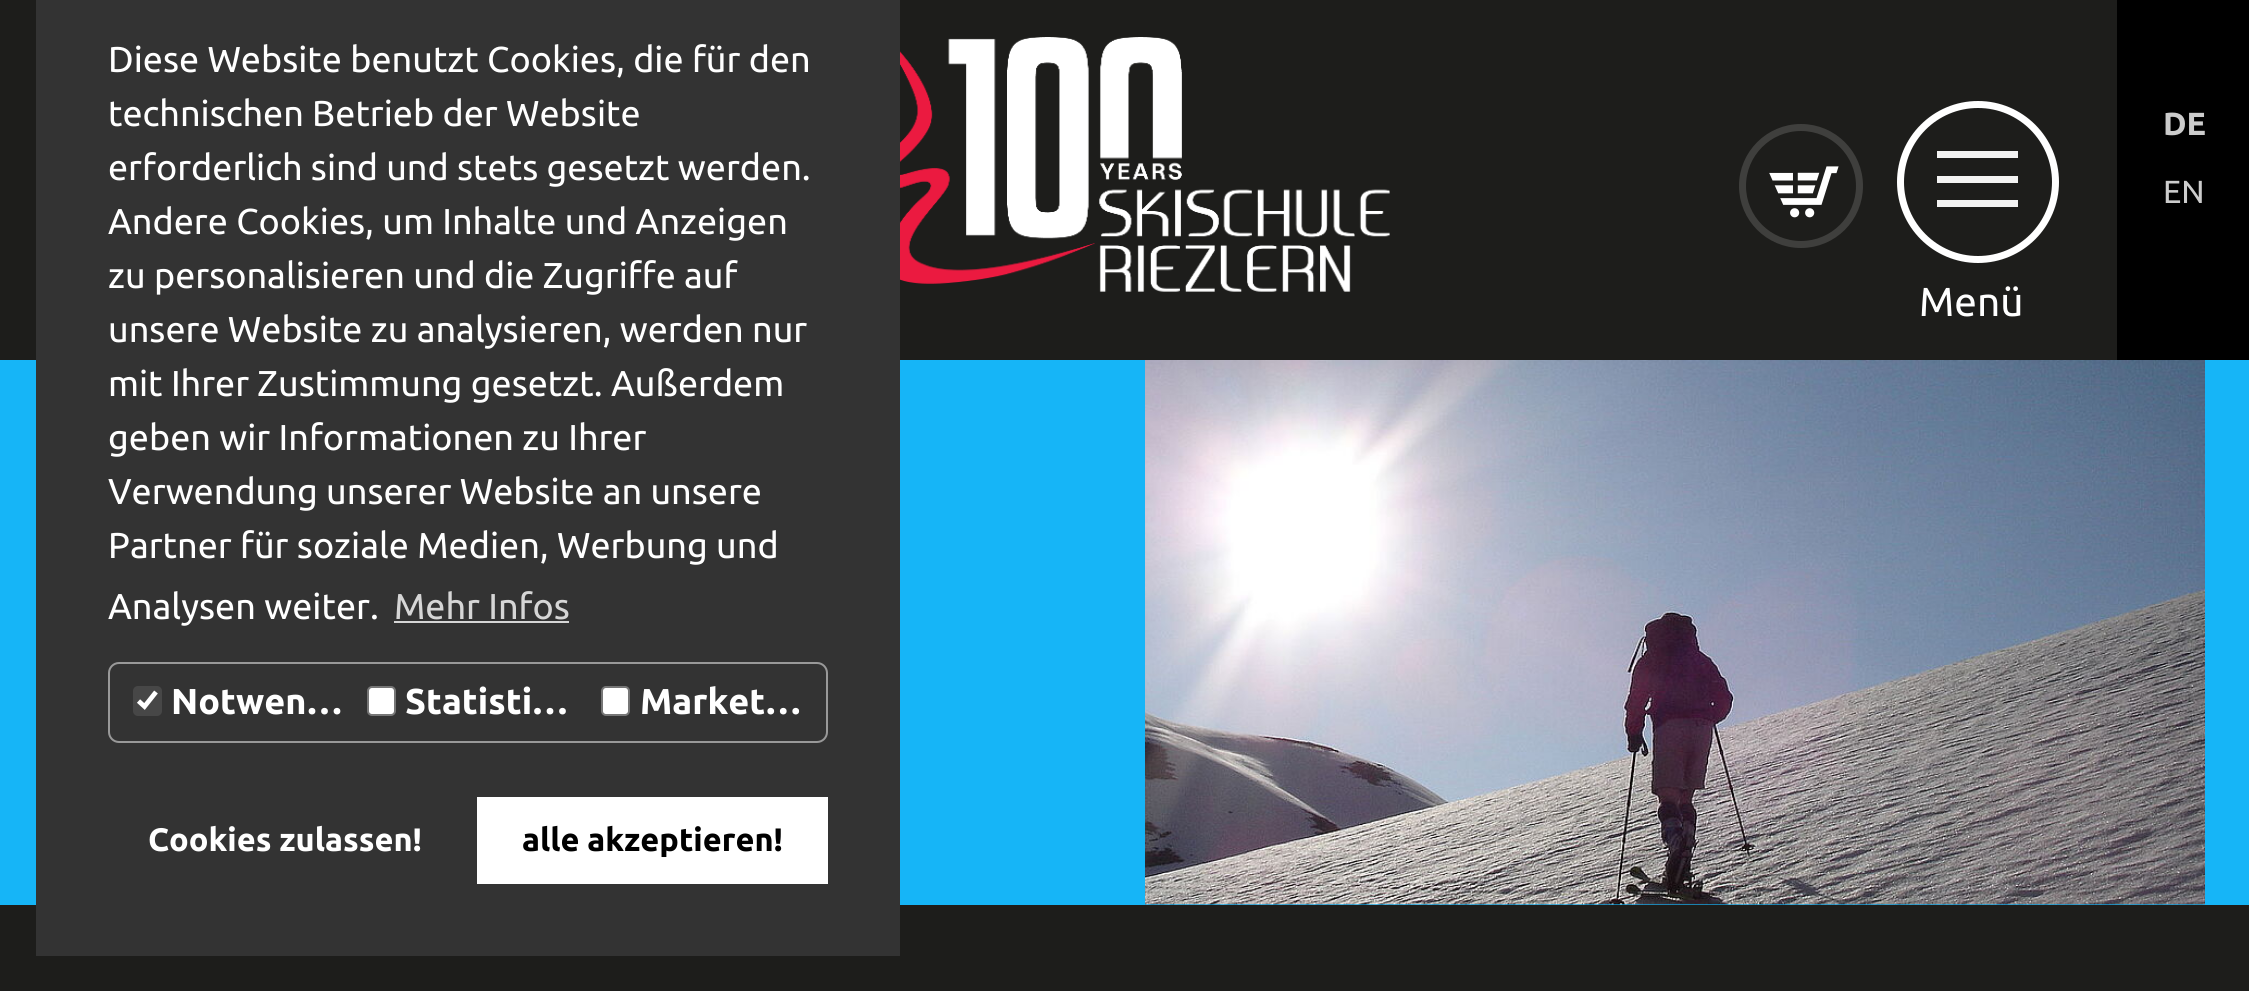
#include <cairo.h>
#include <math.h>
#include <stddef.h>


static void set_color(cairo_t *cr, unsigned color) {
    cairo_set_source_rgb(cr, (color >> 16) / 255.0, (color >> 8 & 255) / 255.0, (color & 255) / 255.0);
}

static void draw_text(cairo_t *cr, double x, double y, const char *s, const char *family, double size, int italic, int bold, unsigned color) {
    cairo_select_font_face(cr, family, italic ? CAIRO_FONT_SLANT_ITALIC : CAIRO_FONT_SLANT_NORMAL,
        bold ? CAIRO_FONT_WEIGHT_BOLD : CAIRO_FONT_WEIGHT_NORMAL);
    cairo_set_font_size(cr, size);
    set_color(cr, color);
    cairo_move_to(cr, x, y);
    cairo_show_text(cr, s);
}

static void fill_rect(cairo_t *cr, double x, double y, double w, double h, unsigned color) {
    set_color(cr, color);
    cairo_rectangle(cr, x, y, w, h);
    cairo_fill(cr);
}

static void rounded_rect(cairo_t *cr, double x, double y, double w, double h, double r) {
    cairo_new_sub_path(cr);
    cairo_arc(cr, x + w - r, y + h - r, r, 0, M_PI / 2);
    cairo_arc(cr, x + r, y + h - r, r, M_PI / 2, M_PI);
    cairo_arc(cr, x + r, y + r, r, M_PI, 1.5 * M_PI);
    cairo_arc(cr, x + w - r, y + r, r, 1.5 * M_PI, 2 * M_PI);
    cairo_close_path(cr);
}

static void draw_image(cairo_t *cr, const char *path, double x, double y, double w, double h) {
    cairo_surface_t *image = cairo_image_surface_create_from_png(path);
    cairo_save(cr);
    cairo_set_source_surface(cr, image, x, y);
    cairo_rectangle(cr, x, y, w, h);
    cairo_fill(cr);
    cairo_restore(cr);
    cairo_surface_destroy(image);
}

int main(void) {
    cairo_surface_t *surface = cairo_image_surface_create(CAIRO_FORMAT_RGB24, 2249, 991);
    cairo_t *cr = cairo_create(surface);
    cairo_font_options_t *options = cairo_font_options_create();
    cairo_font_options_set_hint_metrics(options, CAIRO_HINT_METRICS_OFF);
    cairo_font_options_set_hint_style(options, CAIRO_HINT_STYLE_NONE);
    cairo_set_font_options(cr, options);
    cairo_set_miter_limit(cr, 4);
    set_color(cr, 0x1D1D1B);
    cairo_paint(cr);
    fill_rect(cr, 0, 360, 1145, 545, 0x16B5F7);
    fill_rect(cr, 36, 0, 864, 956, 0x333333);
    draw_text(cr, 108, 72, "Diese Website benutzt Cookies, die für den", "Ubuntu", 36, 0, 0, 0xFFFFFF);
    draw_text(cr, 108, 126, "technischen Betrieb der Website", "Ubuntu", 36, 0, 0, 0xFFFFFF);
    draw_text(cr, 108, 180, "erforderlich sind und stets gesetzt werden.", "Ubuntu", 36, 0, 0, 0xFFFFFF);
    draw_text(cr, 108, 234, "Andere Cookies, um Inhalte und Anzeigen", "Ubuntu", 36, 0, 0, 0xFFFFFF);
    draw_text(cr, 108, 288, "zu personalisieren und die Zugriffe auf", "Ubuntu", 36, 0, 0, 0xFFFFFF);
    draw_text(cr, 108, 342, "unsere Website zu analysieren, werden nur", "Ubuntu", 36, 0, 0, 0xFFFFFF);
    draw_text(cr, 108, 396, "mit Ihrer Zustimmung gesetzt. Außerdem", "Ubuntu", 36, 0, 0, 0xFFFFFF);
    draw_text(cr, 108, 450, "geben wir Informationen zu Ihrer", "Ubuntu", 36, 0, 0, 0xFFFFFF);
    draw_text(cr, 108, 504, "Verwendung unserer Website an unsere", "Ubuntu", 36, 0, 0, 0xFFFFFF);
    draw_text(cr, 108, 558, "Partner für soziale Medien, Werbung und", "Ubuntu", 36, 0, 0, 0xFFFFFF);
    draw_text(cr, 108, 619, "Analysen weiter.", "Ubuntu", 36, 0, 0, 0xFFFFFF);
    draw_text(cr, 394, 619, "Mehr Infos", "Ubuntu", 36, 0, 0, 0xD6D6D6);
    fill_rect(cr, 394, 621, 175, 2, 0xD6D6D6);
    rounded_rect(cr, 109, 663, 718, 79, 10);
    set_color(cr, 0x999999);
    cairo_stroke(cr);
    set_color(cr, 0x474747);
    rounded_rect(cr, 133, 686, 29, 30, 5);
    cairo_fill(cr);
    cairo_new_path(cr);
    cairo_move_to(cr, 138.5, 701);
    cairo_line_to(cr, 144.5, 706.5);
    cairo_line_to(cr, 156, 692);
    set_color(cr, 0xFFFFFF);
    cairo_set_line_width(cr, 4.7);
    cairo_stroke(cr);
    draw_text(cr, 171, 714, "Notwen…", "Ubuntu", 36, 0, 1, 0xFFFFFF);
    rounded_rect(cr, 368, 687, 27, 28, 4);
    cairo_fill_preserve(cr);
    set_color(cr, 0x767676);
    cairo_set_line_width(cr, 2);
    cairo_stroke(cr);
    draw_text(cr, 405, 714, "Statisti…", "Ubuntu", 36, 0, 1, 0xFFFFFF);
    rounded_rect(cr, 602, 687, 27, 28, 4);
    cairo_fill_preserve(cr);
    set_color(cr, 0x767676);
    cairo_stroke(cr);
    draw_text(cr, 640, 714, "Market…", "Ubuntu", 36, 0, 1, 0xFFFFFF);
    draw_text(cr, 148, 851, "Cookies zulassen!", "Ubuntu", 32.5, 0, 1, 0xFFFFFF);
    fill_rect(cr, 477, 797, 351, 87, 0xFFFFFF);
    draw_text(cr, 522, 851, "alle akzeptieren!", "Ubuntu", 32.5, 0, 1, 0x000000);
    draw_image(cr, "assets/img1.png", 900, 37, 490, 255);
    fill_rect(cr, 2117, 0, 132, 360, 0x000000);
    draw_text(cr, 2163, 135, "DE", "Ubuntu", 32, 0, 1, 0xCCCCCC);
    draw_text(cr, 2163, 203, "EN", "Ubuntu", 32, 0, 0, 0xCCCCCC);
    cairo_new_path(cr);
    cairo_arc(cr, 1801, 186, 58.5, 0, 2 * M_PI);
    set_color(cr, 0x3F3F3D);
    cairo_set_line_width(cr, 7);
    cairo_stroke(cr);
    draw_image(cr, "assets/img2.png", 1769, 166, 70, 52);
    cairo_arc(cr, 1978, 182, 77.5, 0, 2 * M_PI);
    set_color(cr, 0xFFFFFF);
    cairo_stroke(cr);
    fill_rect(cr, 1937, 151, 81, 7, 0xF3F3F3);
    fill_rect(cr, 1937, 176, 81, 7, 0xF3F3F3);
    fill_rect(cr, 1937, 200, 81, 7, 0xF3F3F3);
    draw_text(cr, 1919, 316, "Menü", "Ubuntu", 40.5, 0, 0, 0xFFFFFF);
    fill_rect(cr, 2205, 360, 44, 545, 0x16B5F7);
    fill_rect(cr, 1145, 904, 1060, 1, 0x17A0DB);
    draw_image(cr, "assets/img3.png", 1145, 360, 1060, 545);
    cairo_surface_write_to_png(surface, "output.png");
    cairo_font_options_destroy(options);
    cairo_destroy(cr);
    cairo_surface_destroy(surface);
    return 0;
}
